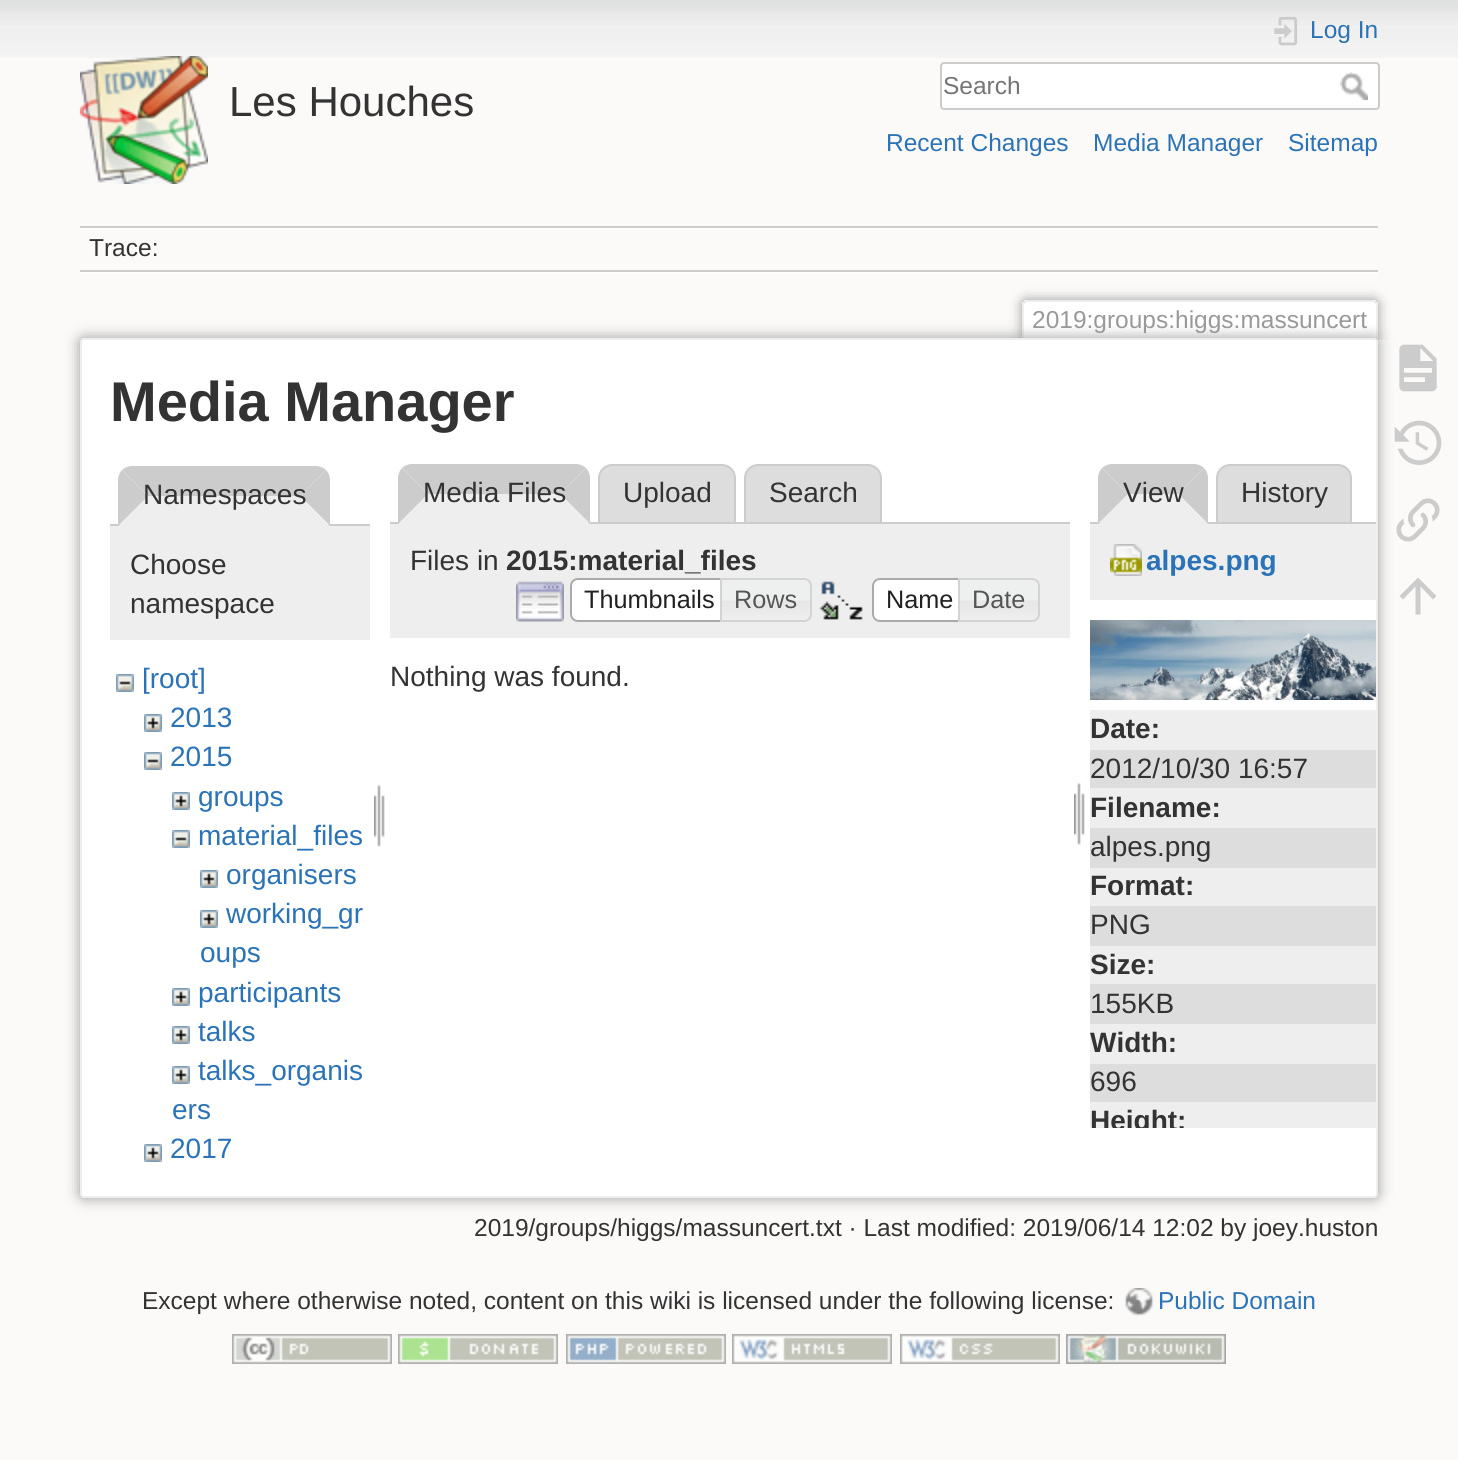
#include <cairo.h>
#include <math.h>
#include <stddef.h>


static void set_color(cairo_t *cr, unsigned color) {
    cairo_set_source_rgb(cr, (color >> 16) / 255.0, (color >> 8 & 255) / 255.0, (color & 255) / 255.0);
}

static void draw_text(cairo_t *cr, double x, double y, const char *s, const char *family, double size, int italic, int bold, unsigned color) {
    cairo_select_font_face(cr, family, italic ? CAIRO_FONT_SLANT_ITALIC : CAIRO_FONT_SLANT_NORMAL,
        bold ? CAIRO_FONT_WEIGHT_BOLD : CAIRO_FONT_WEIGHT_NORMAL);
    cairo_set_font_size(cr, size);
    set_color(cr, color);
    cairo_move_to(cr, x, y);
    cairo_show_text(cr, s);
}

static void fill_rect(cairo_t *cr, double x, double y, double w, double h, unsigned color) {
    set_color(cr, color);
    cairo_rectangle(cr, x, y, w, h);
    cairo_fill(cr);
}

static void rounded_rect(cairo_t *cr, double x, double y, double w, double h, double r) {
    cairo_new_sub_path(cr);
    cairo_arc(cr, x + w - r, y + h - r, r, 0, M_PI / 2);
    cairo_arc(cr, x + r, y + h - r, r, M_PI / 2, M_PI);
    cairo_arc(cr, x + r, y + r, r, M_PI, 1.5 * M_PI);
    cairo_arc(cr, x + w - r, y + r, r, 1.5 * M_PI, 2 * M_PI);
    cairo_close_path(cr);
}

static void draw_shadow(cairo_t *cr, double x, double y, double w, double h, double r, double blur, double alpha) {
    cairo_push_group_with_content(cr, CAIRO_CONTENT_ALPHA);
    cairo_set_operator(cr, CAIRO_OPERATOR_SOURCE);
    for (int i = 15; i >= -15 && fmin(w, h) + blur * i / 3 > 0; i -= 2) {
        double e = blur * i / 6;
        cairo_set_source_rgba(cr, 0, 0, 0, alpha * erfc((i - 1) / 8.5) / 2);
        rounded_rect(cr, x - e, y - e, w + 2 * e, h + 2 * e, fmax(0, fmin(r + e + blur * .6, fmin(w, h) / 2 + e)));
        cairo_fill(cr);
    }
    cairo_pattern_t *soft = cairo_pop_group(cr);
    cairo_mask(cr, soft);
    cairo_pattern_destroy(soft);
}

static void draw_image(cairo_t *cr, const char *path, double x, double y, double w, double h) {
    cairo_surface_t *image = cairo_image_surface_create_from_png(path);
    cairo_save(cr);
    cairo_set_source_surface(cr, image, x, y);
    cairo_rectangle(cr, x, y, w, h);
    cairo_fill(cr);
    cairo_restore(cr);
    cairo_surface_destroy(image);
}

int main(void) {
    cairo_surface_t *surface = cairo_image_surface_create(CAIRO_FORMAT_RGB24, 1458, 1460);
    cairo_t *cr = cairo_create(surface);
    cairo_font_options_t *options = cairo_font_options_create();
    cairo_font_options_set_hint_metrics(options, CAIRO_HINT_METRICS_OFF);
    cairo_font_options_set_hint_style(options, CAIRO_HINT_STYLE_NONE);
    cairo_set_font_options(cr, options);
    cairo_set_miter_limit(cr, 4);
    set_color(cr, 0xFBFAF9);
    cairo_paint(cr);
    draw_image(cr, "assets/img1.png", 0, 0, 1458, 58);
    draw_image(cr, "assets/img2.png", 80, 56, 128, 128);
    draw_text(cr, 229, 116, "Les Houches", "Liberation Sans", 42, 0, 0, 0x333333);
    draw_image(cr, "assets/img3.png", 1274, 16, 24, 30);
    draw_text(cr, 1310, 38, "Log In", "Liberation Sans", 24.5, 0, 0, 0x2B73B7);
    set_color(cr, 0xFFFFFF);
    rounded_rect(cr, 941, 63, 438, 46, 3);
    cairo_fill_preserve(cr);
    set_color(cr, 0xCCCCCC);
    cairo_stroke(cr);
    draw_text(cr, 943, 94, "Search", "Liberation Sans", 24.5, 0, 0, 0x757575);
    draw_image(cr, "assets/img4.png", 1340, 72, 28, 28);
    draw_text(cr, 886, 151, "Recent Changes", "Liberation Sans", 24.5, 0, 0, 0x2B73B7);
    draw_text(cr, 1093, 151, "Media Manager", "Liberation Sans", 24.5, 0, 0, 0x2B73B7);
    draw_text(cr, 1288, 151, "Sitemap", "Liberation Sans", 24.5, 0, 0, 0x2B73B7);
    fill_rect(cr, 80, 226, 1298, 2, 0xCCCCCC);
    fill_rect(cr, 80, 272, 1298, 2, 0xFFFFFF);
    fill_rect(cr, 80, 228, 1298, 2, 0xFFFFFF);
    fill_rect(cr, 80, 270, 1298, 2, 0xCCCCCC);
    draw_text(cr, 89, 256, "Trace:", "Liberation Sans", 24.5, 0, 0, 0x333333);
    cairo_save(cr);
    cairo_rectangle(cr, 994, 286, 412, 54);
    cairo_clip(cr);
    set_color(cr, 0x999999);
    draw_shadow(cr, 1022, 300, 356, 40, 4, 6, 1);
    cairo_restore(cr);
    set_color(cr, 0xFFFFFF);
    cairo_new_path(cr);
    cairo_move_to(cr, 1026, 302);
    cairo_line_to(cr, 1374, 302);
    cairo_curve_to(cr, 1375, 302, 1376, 303, 1376, 304);
    cairo_line_to(cr, 1376, 340);
    cairo_line_to(cr, 1024, 340);
    cairo_line_to(cr, 1024, 304);
    cairo_curve_to(cr, 1024, 303, 1025, 302, 1026, 302);
    cairo_close_path(cr);
    cairo_fill(cr);
    fill_rect(cr, 1024, 300, 352, 2, 0xEEEEEE);
    fill_rect(cr, 1376, 302, 2, 38, 0xEEEEEE);
    fill_rect(cr, 1022, 302, 2, 38, 0xEEEEEE);
    draw_text(cr, 1032, 328, "2019:groups:higgs:massuncert", "Liberation Sans", 24.5, 0, 0, 0x999999);
    set_color(cr, 0x999999);
    draw_shadow(cr, 80, 338, 1298, 860, 4, 7, 1);
    set_color(cr, 0xFFFFFF);
    rounded_rect(cr, 81, 339, 1296, 858, 3);
    cairo_fill_preserve(cr);
    set_color(cr, 0xEEEEEE);
    cairo_stroke(cr);
    draw_text(cr, 110, 421, "Media Manager", "Liberation Sans", 56, 0, 1, 0x333333);
    set_color(cr, 0xCCCCCC);
    cairo_new_path(cr);
    cairo_move_to(cr, 132, 466);
    cairo_line_to(cr, 316, 466);
    cairo_curve_to(cr, 320, 466, 324, 468, 326, 470);
    cairo_line_to(cr, 300, 496);
    cairo_line_to(cr, 148, 496);
    cairo_line_to(cr, 122, 470);
    cairo_curve_to(cr, 124, 468, 128, 466, 132, 466);
    cairo_close_path(cr);
    cairo_fill(cr);
    fill_rect(cr, 110, 524, 260, 2, 0xCCCCCC);
    cairo_new_path(cr);
    cairo_move_to(cr, 326, 470);
    cairo_line_to(cr, 300, 496);
    cairo_line_to(cr, 330, 526);
    cairo_line_to(cr, 330, 480);
    cairo_curve_to(cr, 330, 476, 328, 472, 326, 470);
    cairo_close_path(cr);
    cairo_fill(cr);
    set_color(cr, 0xEEEEEE);
    cairo_new_path(cr);
    cairo_move_to(cr, 330, 526);
    cairo_line_to(cr, 300, 496);
    cairo_line_to(cr, 148, 496);
    cairo_line_to(cr, 118, 526);
    cairo_close_path(cr);
    cairo_fill(cr);
    set_color(cr, 0xCCCCCC);
    cairo_new_path(cr);
    cairo_move_to(cr, 118, 526);
    cairo_line_to(cr, 118, 480);
    cairo_curve_to(cr, 118, 476, 120, 472, 122, 470);
    cairo_line_to(cr, 148, 496);
    cairo_close_path(cr);
    cairo_fill(cr);
    draw_text(cr, 143, 504, "Namespaces", "Liberation Sans", 28, 0, 0, 0x333333);
    fill_rect(cr, 110, 526, 260, 114, 0xEEEEEE);
    draw_text(cr, 130, 574, "Choose", "Liberation Sans", 28, 0, 0, 0x333333);
    draw_text(cr, 130, 613, "namespace", "Liberation Sans", 28, 0, 0, 0x333333);
    draw_image(cr, "assets/img5.png", 116, 674, 18, 18);
    draw_text(cr, 142, 688, "[root]", "Liberation Sans", 28, 0, 0, 0x2B73B7);
    draw_image(cr, "assets/img6.png", 144, 714, 18, 18);
    draw_text(cr, 170, 727, "2013", "Liberation Sans", 28, 0, 0, 0x2B73B7);
    draw_image(cr, "assets/img5.png", 144, 752, 18, 18);
    draw_text(cr, 170, 766, "2015", "Liberation Sans", 28, 0, 0, 0x2B73B7);
    draw_image(cr, "assets/img6.png", 172, 792, 18, 18);
    draw_text(cr, 198, 806, "groups", "Liberation Sans", 28, 0, 0, 0x2B73B7);
    draw_image(cr, "assets/img5.png", 172, 830, 18, 18);
    draw_text(cr, 198, 845, "material_files", "Liberation Sans", 28, 0, 0, 0x2B73B7);
    draw_image(cr, "assets/img6.png", 200, 870, 18, 18);
    draw_text(cr, 226, 884, "organisers", "Liberation Sans", 28, 0, 0, 0x2B73B7);
    draw_image(cr, "assets/img6.png", 200, 910, 18, 18);
    draw_text(cr, 226, 923, "working_gr", "Liberation Sans", 28, 0, 0, 0x2B73B7);
    draw_text(cr, 200, 962, "oups", "Liberation Sans", 28, 0, 0, 0x2B73B7);
    draw_image(cr, "assets/img6.png", 172, 988, 18, 18);
    draw_text(cr, 198, 1002, "participants", "Liberation Sans", 28, 0, 0, 0x2B73B7);
    draw_image(cr, "assets/img6.png", 172, 1026, 18, 18);
    draw_text(cr, 198, 1041, "talks", "Liberation Sans", 28, 0, 0, 0x2B73B7);
    draw_image(cr, "assets/img6.png", 172, 1066, 18, 18);
    draw_text(cr, 198, 1080, "talks_organis", "Liberation Sans", 28, 0, 0, 0x2B73B7);
    draw_text(cr, 172, 1119, "ers", "Liberation Sans", 28, 0, 0, 0x2B73B7);
    draw_image(cr, "assets/img6.png", 144, 1144, 18, 18);
    draw_text(cr, 170, 1158, "2017", "Liberation Sans", 28, 0, 0, 0x2B73B7);
    draw_image(cr, "assets/img7.png", 374, 784, 11, 63);
    set_color(cr, 0xCCCCCC);
    cairo_new_path(cr);
    cairo_move_to(cr, 412, 464);
    cairo_line_to(cr, 576, 464);
    cairo_curve_to(cr, 580, 464, 584, 466, 586, 468);
    cairo_line_to(cr, 560, 494);
    cairo_line_to(cr, 428, 494);
    cairo_line_to(cr, 402, 468);
    cairo_curve_to(cr, 404, 466, 408, 464, 412, 464);
    cairo_close_path(cr);
    cairo_fill(cr);
    set_color(cr, 0xDDDDDD);
    cairo_new_path(cr);
    cairo_move_to(cr, 612, 465);
    cairo_line_to(cr, 722, 465);
    cairo_curve_to(cr, 729, 465, 735, 471, 735, 478);
    cairo_line_to(cr, 735, 523);
    cairo_line_to(cr, 599, 523);
    cairo_line_to(cr, 599, 478);
    cairo_curve_to(cr, 599, 471, 605, 465, 612, 465);
    cairo_close_path(cr);
    cairo_fill_preserve(cr);
    set_color(cr, 0xCCCCCC);
    cairo_stroke(cr);
    set_color(cr, 0xDDDDDD);
    cairo_new_path(cr);
    cairo_move_to(cr, 758, 465);
    cairo_line_to(cr, 868, 465);
    cairo_curve_to(cr, 875, 465, 881, 471, 881, 478);
    cairo_line_to(cr, 881, 523);
    cairo_line_to(cr, 745, 523);
    cairo_line_to(cr, 745, 478);
    cairo_curve_to(cr, 745, 471, 751, 465, 758, 465);
    cairo_close_path(cr);
    cairo_fill_preserve(cr);
    set_color(cr, 0xCCCCCC);
    cairo_stroke(cr);
    fill_rect(cr, 390, 522, 680, 2, 0xCCCCCC);
    cairo_new_path(cr);
    cairo_move_to(cr, 586, 468);
    cairo_line_to(cr, 560, 494);
    cairo_line_to(cr, 590, 524);
    cairo_line_to(cr, 590, 478);
    cairo_curve_to(cr, 590, 474, 588, 470, 586, 468);
    cairo_close_path(cr);
    cairo_fill(cr);
    set_color(cr, 0xEEEEEE);
    cairo_new_path(cr);
    cairo_move_to(cr, 590, 524);
    cairo_line_to(cr, 560, 494);
    cairo_line_to(cr, 428, 494);
    cairo_line_to(cr, 398, 524);
    cairo_close_path(cr);
    cairo_fill(cr);
    set_color(cr, 0xCCCCCC);
    cairo_new_path(cr);
    cairo_move_to(cr, 398, 524);
    cairo_line_to(cr, 398, 478);
    cairo_curve_to(cr, 398, 474, 400, 470, 402, 468);
    cairo_line_to(cr, 428, 494);
    cairo_close_path(cr);
    cairo_fill(cr);
    draw_text(cr, 423, 502, "Media Files", "Liberation Sans", 28, 0, 0, 0x333333);
    draw_text(cr, 623, 502, "Upload", "Liberation Sans", 28, 0, 0, 0x333333);
    draw_text(cr, 769, 502, "Search", "Liberation Sans", 28, 0, 0, 0x333333);
    fill_rect(cr, 390, 524, 680, 114, 0xEEEEEE);
    draw_text(cr, 410, 570, "Files in", "Liberation Sans", 28, 0, 0, 0x333333);
    draw_text(cr, 506, 570, "2015:material_files", "Liberation Sans", 28, 0, 1, 0x333333);
    draw_image(cr, "assets/img8.png", 516, 581, 48, 41);
    set_color(cr, 0xFFFFFF);
    cairo_new_path(cr);
    cairo_move_to(cr, 578, 578);
    cairo_line_to(cr, 730, 578);
    cairo_line_to(cr, 730, 622);
    cairo_line_to(cr, 578, 622);
    cairo_curve_to(cr, 573.5, 622, 570, 618.5, 570, 614);
    cairo_line_to(cr, 570, 586);
    cairo_curve_to(cr, 570, 581.5, 573.5, 578, 578, 578);
    cairo_close_path(cr);
    cairo_fill(cr);
    draw_image(cr, "assets/img9.png", 570, 578, 6, 44);
    cairo_new_path(cr);
    cairo_move_to(cr, 578, 579);
    cairo_line_to(cr, 729, 579);
    cairo_line_to(cr, 729, 621);
    cairo_line_to(cr, 578, 621);
    cairo_curve_to(cr, 574, 621, 571, 618, 571, 614);
    cairo_line_to(cr, 571, 586);
    cairo_curve_to(cr, 571, 582, 574, 579, 578, 579);
    cairo_close_path(cr);
    set_color(cr, 0xAAAAAA);
    cairo_stroke(cr);
    draw_text(cr, 584, 608, "Thumbnails", "Liberation Sans", 25.25, 0, 0, 0x212121);
    draw_image(cr, "assets/img10.png", 722, 578, 90, 44);
    cairo_new_path(cr);
    cairo_move_to(cr, 721, 579);
    cairo_line_to(cr, 804, 579);
    cairo_curve_to(cr, 808, 579, 811, 582, 811, 586);
    cairo_line_to(cr, 811, 614);
    cairo_curve_to(cr, 811, 618, 808, 621, 804, 621);
    cairo_line_to(cr, 721, 621);
    cairo_close_path(cr);
    set_color(cr, 0xD3D3D3);
    cairo_stroke(cr);
    draw_text(cr, 734, 608, "Rows", "Liberation Sans", 25.25, 0, 0, 0x555555);
    draw_image(cr, "assets/img11.png", 819, 581, 44, 39);
    set_color(cr, 0xFFFFFF);
    cairo_new_path(cr);
    cairo_move_to(cr, 880, 578);
    cairo_line_to(cr, 968, 578);
    cairo_line_to(cr, 968, 622);
    cairo_line_to(cr, 880, 622);
    cairo_curve_to(cr, 875.5, 622, 872, 618.5, 872, 614);
    cairo_line_to(cr, 872, 586);
    cairo_curve_to(cr, 872, 581.5, 875.5, 578, 880, 578);
    cairo_close_path(cr);
    cairo_fill(cr);
    draw_image(cr, "assets/img9.png", 872, 578, 6, 44);
    cairo_new_path(cr);
    cairo_move_to(cr, 880, 579);
    cairo_line_to(cr, 967, 579);
    cairo_line_to(cr, 967, 621);
    cairo_line_to(cr, 880, 621);
    cairo_curve_to(cr, 876, 621, 873, 618, 873, 614);
    cairo_line_to(cr, 873, 586);
    cairo_curve_to(cr, 873, 582, 876, 579, 880, 579);
    cairo_close_path(cr);
    set_color(cr, 0xAAAAAA);
    cairo_stroke(cr);
    draw_text(cr, 886, 608, "Name", "Liberation Sans", 25.25, 0, 0, 0x212121);
    draw_image(cr, "assets/img12.png", 960, 578, 80, 44);
    cairo_new_path(cr);
    cairo_move_to(cr, 959, 579);
    cairo_line_to(cr, 1032, 579);
    cairo_curve_to(cr, 1036, 579, 1039, 582, 1039, 586);
    cairo_line_to(cr, 1039, 614);
    cairo_curve_to(cr, 1039, 618, 1036, 621, 1032, 621);
    cairo_line_to(cr, 959, 621);
    cairo_close_path(cr);
    set_color(cr, 0xD3D3D3);
    cairo_stroke(cr);
    draw_text(cr, 972, 608, "Date", "Liberation Sans", 25.25, 0, 0, 0x555555);
    draw_text(cr, 390, 686, "Nothing was found.", "Liberation Sans", 28, 0, 0, 0x333333);
    draw_image(cr, "assets/img7.png", 1074, 782, 11, 63);
    set_color(cr, 0xCCCCCC);
    cairo_new_path(cr);
    cairo_move_to(cr, 1112, 464);
    cairo_line_to(cr, 1194, 464);
    cairo_curve_to(cr, 1198, 464, 1202, 466, 1204, 468);
    cairo_line_to(cr, 1178, 494);
    cairo_line_to(cr, 1128, 494);
    cairo_line_to(cr, 1102, 468);
    cairo_curve_to(cr, 1104, 466, 1108, 464, 1112, 464);
    cairo_close_path(cr);
    cairo_fill(cr);
    set_color(cr, 0xDDDDDD);
    cairo_new_path(cr);
    cairo_move_to(cr, 1230, 465);
    cairo_line_to(cr, 1338, 465);
    cairo_curve_to(cr, 1345, 465, 1351, 471, 1351, 478);
    cairo_line_to(cr, 1351, 523);
    cairo_line_to(cr, 1217, 523);
    cairo_line_to(cr, 1217, 478);
    cairo_curve_to(cr, 1217, 471, 1223, 465, 1230, 465);
    cairo_close_path(cr);
    cairo_fill_preserve(cr);
    set_color(cr, 0xCCCCCC);
    cairo_stroke(cr);
    fill_rect(cr, 1090, 522, 286, 2, 0xCCCCCC);
    cairo_new_path(cr);
    cairo_move_to(cr, 1204, 468);
    cairo_line_to(cr, 1178, 494);
    cairo_line_to(cr, 1208, 524);
    cairo_line_to(cr, 1208, 478);
    cairo_curve_to(cr, 1208, 474, 1206, 470, 1204, 468);
    cairo_close_path(cr);
    cairo_fill(cr);
    set_color(cr, 0xEEEEEE);
    cairo_new_path(cr);
    cairo_move_to(cr, 1208, 524);
    cairo_line_to(cr, 1178, 494);
    cairo_line_to(cr, 1128, 494);
    cairo_line_to(cr, 1098, 524);
    cairo_close_path(cr);
    cairo_fill(cr);
    set_color(cr, 0xCCCCCC);
    cairo_new_path(cr);
    cairo_move_to(cr, 1098, 524);
    cairo_line_to(cr, 1098, 478);
    cairo_curve_to(cr, 1098, 474, 1100, 470, 1102, 468);
    cairo_line_to(cr, 1128, 494);
    cairo_close_path(cr);
    cairo_fill(cr);
    draw_text(cr, 1123, 502, "View", "Liberation Sans", 28, 0, 0, 0x333333);
    draw_text(cr, 1241, 502, "History", "Liberation Sans", 28, 0, 0, 0x333333);
    fill_rect(cr, 1090, 524, 286, 76, 0xEEEEEE);
    draw_image(cr, "assets/img13.png", 1110, 544, 32, 32);
    draw_text(cr, 1146, 570, "alpes.png", "Liberation Sans", 28, 0, 1, 0x2B73B7);
    draw_image(cr, "assets/img14.png", 1090, 620, 286, 80);
    fill_rect(cr, 1090, 710, 286, 40, 0xEEEEEE);
    draw_text(cr, 1090, 738, "Date:", "Liberation Sans", 28, 0, 1, 0x333333);
    fill_rect(cr, 1090, 750, 286, 38, 0xDDDDDD);
    draw_text(cr, 1090, 778, "2012/10/30 16:57", "Liberation Sans", 28, 0, 0, 0x333333);
    fill_rect(cr, 1090, 788, 286, 40, 0xEEEEEE);
    draw_text(cr, 1090, 817, "Filename:", "Liberation Sans", 28, 0, 1, 0x333333);
    fill_rect(cr, 1090, 828, 286, 40, 0xDDDDDD);
    draw_text(cr, 1090, 856, "alpes.png", "Liberation Sans", 28, 0, 0, 0x333333);
    fill_rect(cr, 1090, 868, 286, 38, 0xEEEEEE);
    draw_text(cr, 1090, 895, "Format:", "Liberation Sans", 28, 0, 1, 0x333333);
    fill_rect(cr, 1090, 906, 286, 40, 0xDDDDDD);
    draw_text(cr, 1090, 934, "PNG", "Liberation Sans", 28, 0, 0, 0x333333);
    fill_rect(cr, 1090, 946, 286, 38, 0xEEEEEE);
    draw_text(cr, 1090, 974, "Size:", "Liberation Sans", 28, 0, 1, 0x333333);
    fill_rect(cr, 1090, 984, 286, 40, 0xDDDDDD);
    draw_text(cr, 1090, 1013, "155KB", "Liberation Sans", 28, 0, 0, 0x333333);
    fill_rect(cr, 1090, 1024, 286, 40, 0xEEEEEE);
    draw_text(cr, 1090, 1052, "Width:", "Liberation Sans", 28, 0, 1, 0x333333);
    fill_rect(cr, 1090, 1064, 286, 38, 0xDDDDDD);
    draw_text(cr, 1090, 1091, "696", "Liberation Sans", 28, 0, 0, 0x333333);
    fill_rect(cr, 1090, 1102, 286, 26, 0xEEEEEE);
    cairo_save(cr);
    cairo_rectangle(cr, 1090, 620, 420, 508);
    cairo_clip(cr);
    draw_text(cr, 1090, 1130, "Height:", "Liberation Sans", 28, 0, 1, 0x333333);
    cairo_restore(cr);
    draw_text(cr, 474, 1236, "2019/groups/higgs/massuncert.txt · Last modified: 2019/06/14 12:02 by joey.huston", "Liberation Sans", 24.5, 0, 0, 0x333333);
    draw_image(cr, "assets/img15.png", 1399, 344, 38, 48);
    draw_image(cr, "assets/img16.png", 1394, 420, 48, 45);
    draw_image(cr, "assets/img17.png", 1396, 498, 44, 44);
    set_color(cr, 0xCCCCCC);
    cairo_new_path(cr);
    cairo_move_to(cr, 1420.5, 614.5);
    cairo_line_to(cr, 1415.5, 614.5);
    cairo_line_to(cr, 1415.5, 586.5);
    cairo_line_to(cr, 1403, 599.5);
    cairo_line_to(cr, 1399.5, 596);
    cairo_line_to(cr, 1418, 577.5);
    cairo_line_to(cr, 1436.5, 596);
    cairo_line_to(cr, 1433, 599.5);
    cairo_line_to(cr, 1420.5, 586.5);
    cairo_close_path(cr);
    cairo_fill(cr);
    draw_text(cr, 142, 1309, "Except where otherwise noted, content on this wiki is licensed under the following license:", "Liberation Sans", 24.5, 0, 0, 0x333333);
    draw_image(cr, "assets/img18.png", 1125, 1288, 29, 28);
    draw_text(cr, 1158, 1309, "Public Domain", "Liberation Sans", 24.5, 0, 0, 0x2B73B7);
    draw_image(cr, "assets/img19.png", 232, 1334, 160, 30);
    draw_image(cr, "assets/img20.png", 398, 1334, 160, 30);
    draw_image(cr, "assets/img21.png", 566, 1334, 160, 30);
    draw_image(cr, "assets/img22.png", 732, 1334, 160, 30);
    draw_image(cr, "assets/img23.png", 900, 1334, 160, 30);
    draw_image(cr, "assets/img24.png", 1066, 1334, 160, 30);
    cairo_surface_write_to_png(surface, "output.png");
    cairo_font_options_destroy(options);
    cairo_destroy(cr);
    cairo_surface_destroy(surface);
    return 0;
}
